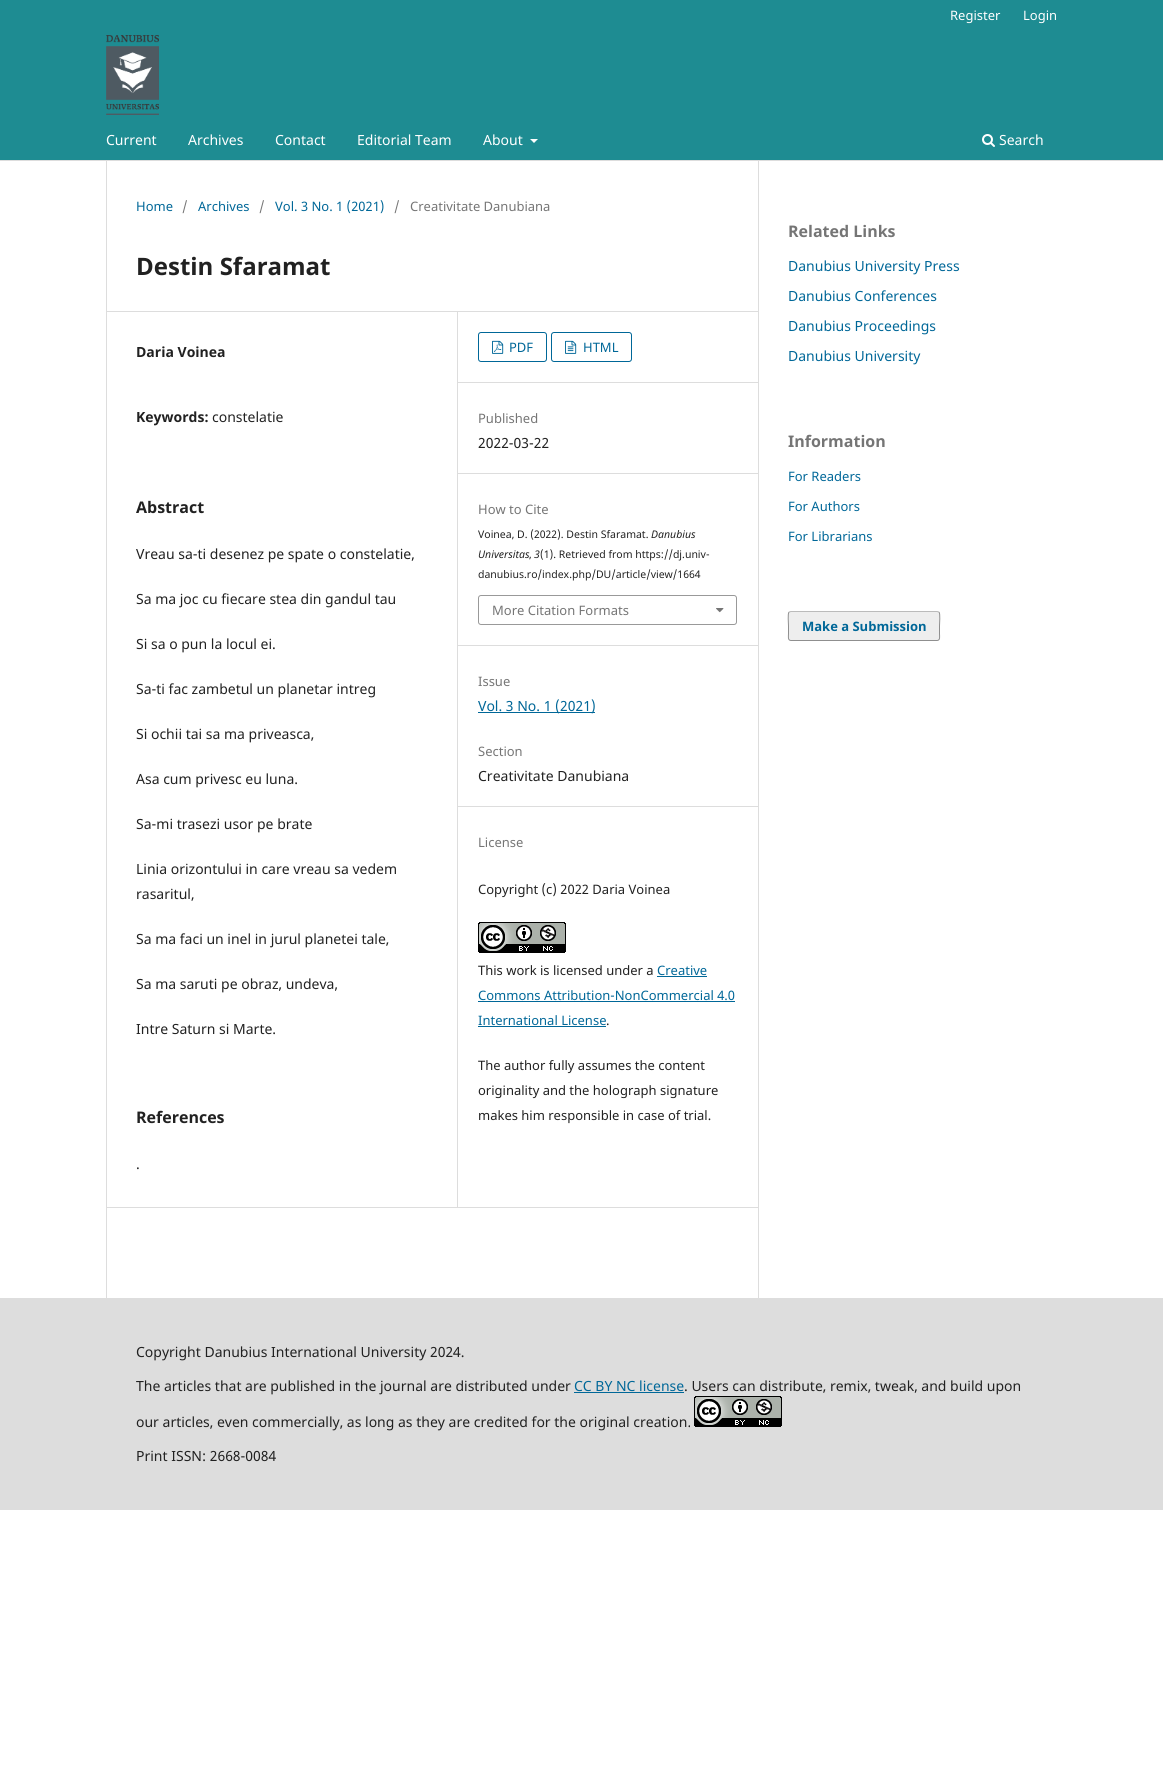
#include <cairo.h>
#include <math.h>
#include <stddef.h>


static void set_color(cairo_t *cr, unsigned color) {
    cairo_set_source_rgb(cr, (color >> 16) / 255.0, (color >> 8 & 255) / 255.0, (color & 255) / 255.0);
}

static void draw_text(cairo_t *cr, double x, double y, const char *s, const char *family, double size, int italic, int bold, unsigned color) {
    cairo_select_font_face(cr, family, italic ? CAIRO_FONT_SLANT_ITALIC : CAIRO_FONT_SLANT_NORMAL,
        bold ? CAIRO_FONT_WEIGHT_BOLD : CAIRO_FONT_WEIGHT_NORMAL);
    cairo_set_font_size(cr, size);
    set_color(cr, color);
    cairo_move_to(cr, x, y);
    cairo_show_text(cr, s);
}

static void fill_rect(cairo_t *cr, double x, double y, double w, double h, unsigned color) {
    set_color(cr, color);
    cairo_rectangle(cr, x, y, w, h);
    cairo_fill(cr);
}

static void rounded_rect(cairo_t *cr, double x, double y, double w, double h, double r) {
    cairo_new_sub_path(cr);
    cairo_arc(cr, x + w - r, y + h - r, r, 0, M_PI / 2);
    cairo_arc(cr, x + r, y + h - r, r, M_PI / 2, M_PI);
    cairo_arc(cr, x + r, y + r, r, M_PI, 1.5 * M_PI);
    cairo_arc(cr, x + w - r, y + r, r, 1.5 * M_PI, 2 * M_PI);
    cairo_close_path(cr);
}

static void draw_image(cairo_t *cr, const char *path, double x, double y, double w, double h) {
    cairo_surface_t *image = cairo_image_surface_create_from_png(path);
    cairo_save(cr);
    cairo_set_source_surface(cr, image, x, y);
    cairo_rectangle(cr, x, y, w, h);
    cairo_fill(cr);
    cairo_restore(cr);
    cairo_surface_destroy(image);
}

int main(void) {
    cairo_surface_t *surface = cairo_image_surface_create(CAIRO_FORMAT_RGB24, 1163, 1792);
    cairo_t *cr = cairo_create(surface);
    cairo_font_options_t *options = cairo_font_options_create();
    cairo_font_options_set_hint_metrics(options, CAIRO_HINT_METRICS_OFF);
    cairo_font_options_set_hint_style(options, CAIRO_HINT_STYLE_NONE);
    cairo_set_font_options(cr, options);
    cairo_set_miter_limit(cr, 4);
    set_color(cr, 0xFFFFFF);
    cairo_paint(cr);
    fill_rect(cr, 0, 0, 1163, 160, 0x1E8C92);
    fill_rect(cr, 0, 160, 1163, 1, 0xDDDDDD);
    draw_text(cr, 950, 20, "Register", "Noto Sans", 13, 0, 0, 0xFFFFFF);
    draw_text(cr, 1023, 20, "Login", "Noto Sans", 13, 0, 0, 0xFFFFFF);
    draw_text(cr, 106, 145, "Current", "Noto Sans", 14, 0, 0, 0xFFFFFF);
    draw_text(cr, 188, 145, "Archives", "Noto Sans", 14, 0, 0, 0xFFFFFF);
    draw_text(cr, 275, 145, "Contact", "Noto Sans", 14, 0, 0, 0xFFFFFF);
    draw_text(cr, 357, 145, "Editorial Team", "Noto Sans", 14, 0, 0, 0xFFFFFF);
    draw_text(cr, 483, 145, "About", "Noto Sans", 14, 0, 0, 0xFFFFFF);
    cairo_new_path(cr);
    cairo_move_to(cr, 530, 139);
    cairo_line_to(cr, 538, 139);
    cairo_line_to(cr, 534, 143);
    cairo_close_path(cr);
    cairo_fill(cr);
    draw_image(cr, "assets/img1.png", 982, 134, 13, 13);
    draw_text(cr, 999, 145, "Search", "Noto Sans", 14, 0, 0, 0xFFFFFF);
    draw_image(cr, "assets/img2.png", 106, 35, 53, 80);
    fill_rect(cr, 106, 311, 652, 1, 0xDDDDDD);
    fill_rect(cr, 106, 1207, 652, 1, 0xDDDDDD);
    fill_rect(cr, 106, 161, 1, 1137, 0xDDDDDD);
    draw_text(cr, 136, 211, "Home", "Noto Sans", 13, 0, 0, 0x006798);
    draw_text(cr, 182, 211, "/", "Noto Sans", 13, 0, 0, 0x757575);
    draw_text(cr, 198, 211, "Archives", "Noto Sans", 13, 0, 0, 0x006798);
    draw_text(cr, 259, 211, "/", "Noto Sans", 13, 0, 0, 0x757575);
    draw_text(cr, 275, 211, "Vol. 3 No. 1 (2021)", "Noto Sans", 13, 0, 0, 0x006798);
    draw_text(cr, 394, 211, "/", "Noto Sans", 13, 0, 0, 0x757575);
    draw_text(cr, 410, 211, "Creativitate Danubiana", "Noto Sans", 13, 0, 0, 0x757575);
    draw_text(cr, 136, 275, "Destin Sfaramat", "Noto Sans", 24, 0, 1, 0x212121);
    fill_rect(cr, 457, 312, 1, 895, 0xDDDDDD);
    draw_text(cr, 136, 357, "Daria Voinea", "Noto Sans", 14, 0, 1, 0x212121);
    draw_text(cr, 136, 422, "Keywords:", "Noto Sans", 14, 0, 1, 0x212121);
    draw_text(cr, 212, 422, "constelatie", "Noto Sans", 14, 0, 0, 0x212121);
    draw_text(cr, 136, 513, "Abstract", "Noto Sans", 16, 0, 1, 0x212121);
    draw_text(cr, 136, 559, "Vreau sa-ti desenez pe spate o constelatie,", "Noto Sans", 14, 0, 0, 0x212121);
    draw_text(cr, 136, 604, "Sa ma joc cu fiecare stea din gandul tau", "Noto Sans", 14, 0, 0, 0x212121);
    draw_text(cr, 136, 649, "Si sa o pun la locul ei.", "Noto Sans", 14, 0, 0, 0x212121);
    draw_text(cr, 136, 694, "Sa-ti fac zambetul un planetar intreg", "Noto Sans", 14, 0, 0, 0x212121);
    draw_text(cr, 136, 739, "Si ochii tai sa ma priveasca,", "Noto Sans", 14, 0, 0, 0x212121);
    draw_text(cr, 136, 784, "Asa cum privesc eu luna.", "Noto Sans", 14, 0, 0, 0x212121);
    draw_text(cr, 136, 829, "Sa-mi trasezi usor pe brate", "Noto Sans", 14, 0, 0, 0x212121);
    draw_text(cr, 136, 874, "Linia orizontului in care vreau sa vedem", "Noto Sans", 14, 0, 0, 0x212121);
    draw_text(cr, 136, 899, "rasaritul,", "Noto Sans", 14, 0, 0, 0x212121);
    draw_text(cr, 136, 944, "Sa ma faci un inel in jurul planetei tale,", "Noto Sans", 14, 0, 0, 0x212121);
    draw_text(cr, 136, 989, "Sa ma saruti pe obraz, undeva,", "Noto Sans", 14, 0, 0, 0x212121);
    draw_text(cr, 136, 1034, "Intre Saturn si Marte.", "Noto Sans", 14, 0, 0, 0x212121);
    draw_text(cr, 136, 1123, "References", "Noto Sans", 16, 0, 1, 0x212121);
    draw_text(cr, 136, 1169, ".", "Noto Sans", 14, 0, 0, 0x212121);
    fill_rect(cr, 458, 382, 300, 1, 0xDDDDDD);
    rounded_rect(cr, 478.5, 332.5, 68, 29, 2.5);
    set_color(cr, 0x006798);
    cairo_set_line_width(cr, 1);
    cairo_stroke(cr);
    draw_image(cr, "assets/img3.png", 492, 340, 12, 14);
    draw_text(cr, 509, 352, "PDF", "Noto Sans", 13, 0, 0, 0x006798);
    rounded_rect(cr, 551.5, 332.5, 80, 29, 2.5);
    cairo_stroke(cr);
    draw_image(cr, "assets/img4.png", 565, 340, 12, 14);
    draw_text(cr, 583, 352, "HTML", "Noto Sans", 13, 0, 0, 0x006798);
    fill_rect(cr, 458, 473, 300, 1, 0xDDDDDD);
    draw_text(cr, 478, 423, "Published", "Noto Sans", 13, 0, 0, 0x757575);
    draw_text(cr, 478, 448, "2022-03-22", "Noto Sans", 14, 0, 0, 0x212121);
    fill_rect(cr, 458, 645, 300, 1, 0xDDDDDD);
    draw_text(cr, 478, 514, "How to Cite", "Noto Sans", 13, 0, 0, 0x757575);
    draw_text(cr, 478, 538, "Voinea, D. (2022). Destin Sfaramat.", "Noto Sans", 10.5, 0, 0, 0x212121);
    draw_text(cr, 651, 538, "Danubius", "Noto Sans", 10.5, 1, 0, 0x212121);
    draw_text(cr, 478, 558, "Universitas", "Noto Sans", 10.5, 1, 0, 0x212121);
    draw_text(cr, 529, 558, ",", "Noto Sans", 10.5, 0, 0, 0x212121);
    draw_text(cr, 534, 558, "3", "Noto Sans", 10.5, 1, 0, 0x212121);
    draw_text(cr, 540, 558, "(1). Retrieved from https://dj.univ-", "Noto Sans", 10.5, 0, 0, 0x212121);
    draw_text(cr, 478, 578, "danubius.ro/index.php/DU/article/view/1664", "Noto Sans", 10.5, 0, 0, 0x212121);
    rounded_rect(cr, 478.5, 595.5, 258, 29, 2.5);
    set_color(cr, 0x999999);
    cairo_stroke(cr);
    draw_text(cr, 492, 615, "More Citation Formats", "Noto Sans", 13, 0, 0, 0x757575);
    draw_image(cr, "assets/img5.png", 716, 608, 8, 5);
    fill_rect(cr, 458, 806, 300, 1, 0xDDDDDD);
    draw_text(cr, 478, 686, "Issue", "Noto Sans", 13, 0, 0, 0x757575);
    fill_rect(cr, 478, 712, 117, 1, 0x006798);
    draw_text(cr, 478, 711, "Vol. 3 No. 1 (2021)", "Noto Sans", 14, 0, 0, 0x006798);
    draw_text(cr, 478, 756, "Section", "Noto Sans", 13, 0, 0, 0x757575);
    draw_text(cr, 478, 781, "Creativitate Danubiana", "Noto Sans", 14, 0, 0, 0x212121);
    draw_text(cr, 478, 847, "License", "Noto Sans", 13, 0, 0, 0x757575);
    draw_text(cr, 478, 894, "Copyright (c) 2022 Daria Voinea", "Noto Sans", 13, 0, 0, 0x212121);
    draw_image(cr, "assets/img6.png", 478, 922, 88, 31);
    draw_text(cr, 478, 975, "This work is licensed under a", "Noto Sans", 13, 0, 0, 0x212121);
    draw_text(cr, 657, 975, "Creative", "Noto Sans", 13, 0, 0, 0x006798);
    fill_rect(cr, 657, 976, 50, 1, 0x006798);
    draw_text(cr, 478, 1000, "Commons Attribution-NonCommercial 4.0", "Noto Sans", 13, 0, 0, 0x006798);
    fill_rect(cr, 478, 1001, 257, 1, 0x006798);
    draw_text(cr, 478, 1025, "International License", "Noto Sans", 13, 0, 0, 0x006798);
    fill_rect(cr, 478, 1026, 128, 1, 0x006798);
    draw_text(cr, 606, 1025, ".", "Noto Sans", 13, 0, 0, 0x212121);
    draw_text(cr, 478, 1070, "The author fully assumes the content", "Noto Sans", 13, 0, 0, 0x212121);
    draw_text(cr, 478, 1095, "originality and the holograph signature", "Noto Sans", 13, 0, 0, 0x212121);
    draw_text(cr, 478, 1120, "makes him responsible in case of trial.", "Noto Sans", 13, 0, 0, 0x212121);
    fill_rect(cr, 758, 161, 1, 1137, 0xDDDDDD);
    draw_text(cr, 788, 237, "Related Links", "Noto Sans", 16, 0, 1, 0x757575);
    draw_text(cr, 788, 271, "Danubius University Press", "Noto Sans", 14, 0, 0, 0x006798);
    draw_text(cr, 788, 301, "Danubius Conferences", "Noto Sans", 14, 0, 0, 0x006798);
    draw_text(cr, 788, 331, "Danubius Proceedings", "Noto Sans", 14, 0, 0, 0x006798);
    draw_text(cr, 788, 361, "Danubius University", "Noto Sans", 14, 0, 0, 0x006798);
    draw_text(cr, 788, 447, "Information", "Noto Sans", 16, 0, 1, 0x757575);
    draw_text(cr, 788, 481, "For Readers", "Noto Sans", 13, 0, 0, 0x006798);
    draw_text(cr, 788, 511, "For Authors", "Noto Sans", 13, 0, 0, 0x006798);
    draw_text(cr, 788, 541, "For Librarians", "Noto Sans", 13, 0, 0, 0x006798);
    set_color(cr, 0xEEEEEE);
    rounded_rect(cr, 788, 611, 152, 30, 3);
    cairo_fill(cr);
    cairo_new_path(cr);
    cairo_move_to(cr, 789, 612);
    cairo_line_to(cr, 791, 611.5);
    cairo_line_to(cr, 937, 611.5);
    cairo_line_to(cr, 939, 612);
    set_color(cr, 0xBBBBBB);
    cairo_stroke(cr);
    cairo_new_path(cr);
    cairo_move_to(cr, 939, 612);
    cairo_curve_to(cr, 940.5, 614, 939.5, 623.5, 939.5, 626);
    cairo_line_to(cr, 939.5, 634);
    cairo_curve_to(cr, 939.5, 636, 940.5, 640.5, 937, 640.5);
    cairo_line_to(cr, 791, 640.5);
    cairo_curve_to(cr, 787.5, 640.5, 788.5, 636, 788.5, 634);
    cairo_line_to(cr, 788.5, 626);
    cairo_curve_to(cr, 788.5, 623.5, 787.5, 614, 789, 612);
    cairo_set_source_rgba(cr, 0, 0, 0, 0.4);
    cairo_stroke(cr);
    draw_text(cr, 802, 631, "Make a Submission", "Noto Sans", 13, 0, 1, 0x006798);
    fill_rect(cr, 0, 1298, 1163, 212, 0xDDDDDD);
    draw_text(cr, 136, 1357, "Copyright Danubius International University 2024.", "Noto Sans", 14, 0, 0, 0x212121);
    draw_text(cr, 136, 1391, "The articles that are published in the journal are distributed under", "Noto Sans", 14, 0, 0, 0x212121);
    draw_text(cr, 574, 1391, "CC BY NC license", "Noto Sans", 14, 0, 0, 0x006798);
    fill_rect(cr, 574, 1392, 110, 1, 0x006798);
    draw_text(cr, 684, 1391, ". Users can distribute, remix, tweak, and build upon", "Noto Sans", 14, 0, 0, 0x212121);
    draw_text(cr, 136, 1427, "our articles, even commercially, as long as they are credited for the original creation.", "Noto Sans", 14, 0, 0, 0x212121);
    draw_image(cr, "assets/img7.png", 694, 1396, 88, 31);
    draw_text(cr, 136, 1461, "Print ISSN: 2668-0084", "Noto Sans", 14, 0, 0, 0x212121);
    cairo_surface_write_to_png(surface, "output.png");
    cairo_font_options_destroy(options);
    cairo_destroy(cr);
    cairo_surface_destroy(surface);
    return 0;
}
